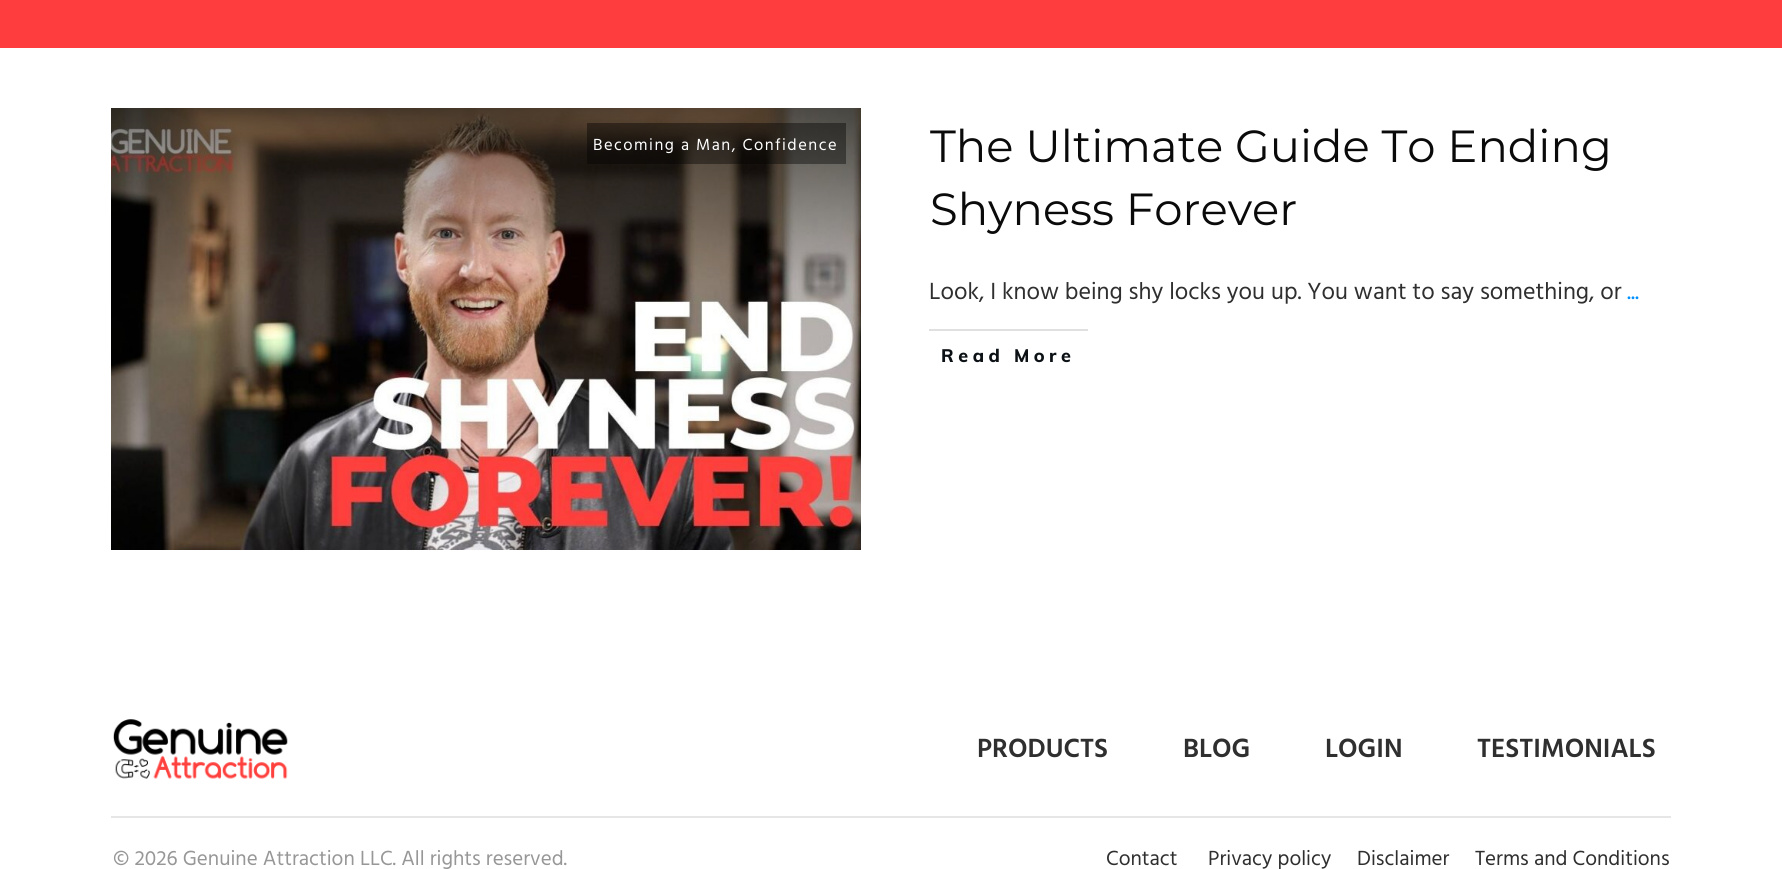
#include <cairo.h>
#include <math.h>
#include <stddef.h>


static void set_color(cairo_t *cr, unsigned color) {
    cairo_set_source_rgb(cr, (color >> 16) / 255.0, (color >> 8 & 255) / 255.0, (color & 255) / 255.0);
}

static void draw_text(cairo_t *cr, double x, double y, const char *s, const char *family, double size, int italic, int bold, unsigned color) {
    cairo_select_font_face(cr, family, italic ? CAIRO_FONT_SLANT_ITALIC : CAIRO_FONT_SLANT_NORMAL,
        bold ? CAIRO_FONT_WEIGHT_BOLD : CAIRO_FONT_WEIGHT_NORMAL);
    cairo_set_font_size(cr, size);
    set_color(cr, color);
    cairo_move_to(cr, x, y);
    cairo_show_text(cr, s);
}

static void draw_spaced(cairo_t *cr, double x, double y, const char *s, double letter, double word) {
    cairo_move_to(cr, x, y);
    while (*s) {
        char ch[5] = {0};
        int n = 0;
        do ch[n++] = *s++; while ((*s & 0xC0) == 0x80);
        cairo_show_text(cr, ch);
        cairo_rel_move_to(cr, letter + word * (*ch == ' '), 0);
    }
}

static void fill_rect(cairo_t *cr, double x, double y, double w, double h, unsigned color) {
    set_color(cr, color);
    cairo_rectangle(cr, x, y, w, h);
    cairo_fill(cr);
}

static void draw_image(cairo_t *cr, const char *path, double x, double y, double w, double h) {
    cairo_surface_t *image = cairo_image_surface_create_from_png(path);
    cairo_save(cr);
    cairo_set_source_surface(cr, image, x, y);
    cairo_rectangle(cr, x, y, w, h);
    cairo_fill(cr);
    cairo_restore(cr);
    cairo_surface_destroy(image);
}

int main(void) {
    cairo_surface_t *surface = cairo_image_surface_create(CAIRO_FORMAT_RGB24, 1782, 869);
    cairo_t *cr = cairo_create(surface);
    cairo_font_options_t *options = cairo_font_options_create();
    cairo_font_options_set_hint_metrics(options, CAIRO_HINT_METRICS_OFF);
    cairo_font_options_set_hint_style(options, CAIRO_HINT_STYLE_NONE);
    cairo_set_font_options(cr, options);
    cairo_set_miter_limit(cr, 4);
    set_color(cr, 0xFFFFFF);
    cairo_paint(cr);
    fill_rect(cr, 0, 0, 1782, 48, 0xFE3E3E);
    draw_image(cr, "assets/img1.png", 111, 108, 750, 442);
    cairo_set_source_rgba(cr, 0, 0, 0, 0.4);
    cairo_rectangle(cr, 587, 123, 259, 41);
    cairo_fill(cr);
    cairo_select_font_face(cr, "Hind", CAIRO_FONT_SLANT_NORMAL, CAIRO_FONT_WEIGHT_NORMAL);
    cairo_set_font_size(cr, 16.5);
    set_color(cr, 0xFFFFFF);
    draw_spaced(cr, 593, 150, "Becoming a Man, Confidence", 1.5, 0);
    draw_text(cr, 930, 162, "The Ultimate Guide To Ending", "Montserrat", 45, 0, 0, 0x0A0A0A);
    draw_text(cr, 930, 225, "Shyness Forever", "Montserrat", 45, 0, 0, 0x0A0A0A);
    draw_text(cr, 929, 299, "Look, I know being shy locks you up. You want to say something, or", "Hind", 24, 0, 0, 0x2F2F2F);
    draw_text(cr, 1627, 299, "...", "Hind", 24, 0, 0, 0x008FFF);
    fill_rect(cr, 929, 329, 159, 2, 0xE0E0E0);
    cairo_select_font_face(cr, "Muli ExtraBold", CAIRO_FONT_SLANT_NORMAL, CAIRO_FONT_WEIGHT_NORMAL);
    cairo_set_font_size(cr, 18);
    set_color(cr, 0x0C1115);
    draw_spaced(cr, 941, 362, "Read More", 4.5, 0);
    fill_rect(cr, 111, 816, 1560, 2, 0xE6E6E6);
    draw_image(cr, "assets/img2.png", 113, 719, 175, 60);
    draw_text(cr, 977, 757, "PRODUCTS", "Hind SemiBold", 27, 0, 0, 0x2F2F2F);
    draw_text(cr, 1183, 757, "BLOG", "Hind SemiBold", 27, 0, 0, 0x2F2F2F);
    draw_text(cr, 1325, 757, "LOGIN", "Hind SemiBold", 27, 0, 0, 0x2F2F2F);
    draw_text(cr, 1477, 757, "TESTIMONIALS", "Hind SemiBold", 27, 0, 0, 0x2F2F2F);
    draw_text(cr, 113, 865, "© 2026 Genuine Attraction LLC. All rights reserved.", "Hind", 21, 0, 0, 0x979798);
    draw_text(cr, 1106, 865, "Contact", "Hind", 21, 0, 0, 0x2F2F2F);
    draw_text(cr, 1208, 865, "Privacy policy", "Hind", 21, 0, 0, 0x2F2F2F);
    draw_text(cr, 1357, 865, "Disclaimer", "Hind", 21, 0, 0, 0x2F2F2F);
    draw_text(cr, 1475, 865, "Terms and Conditions", "Hind", 21, 0, 0, 0x2F2F2F);
    cairo_surface_write_to_png(surface, "output.png");
    cairo_font_options_destroy(options);
    cairo_destroy(cr);
    cairo_surface_destroy(surface);
    return 0;
}
